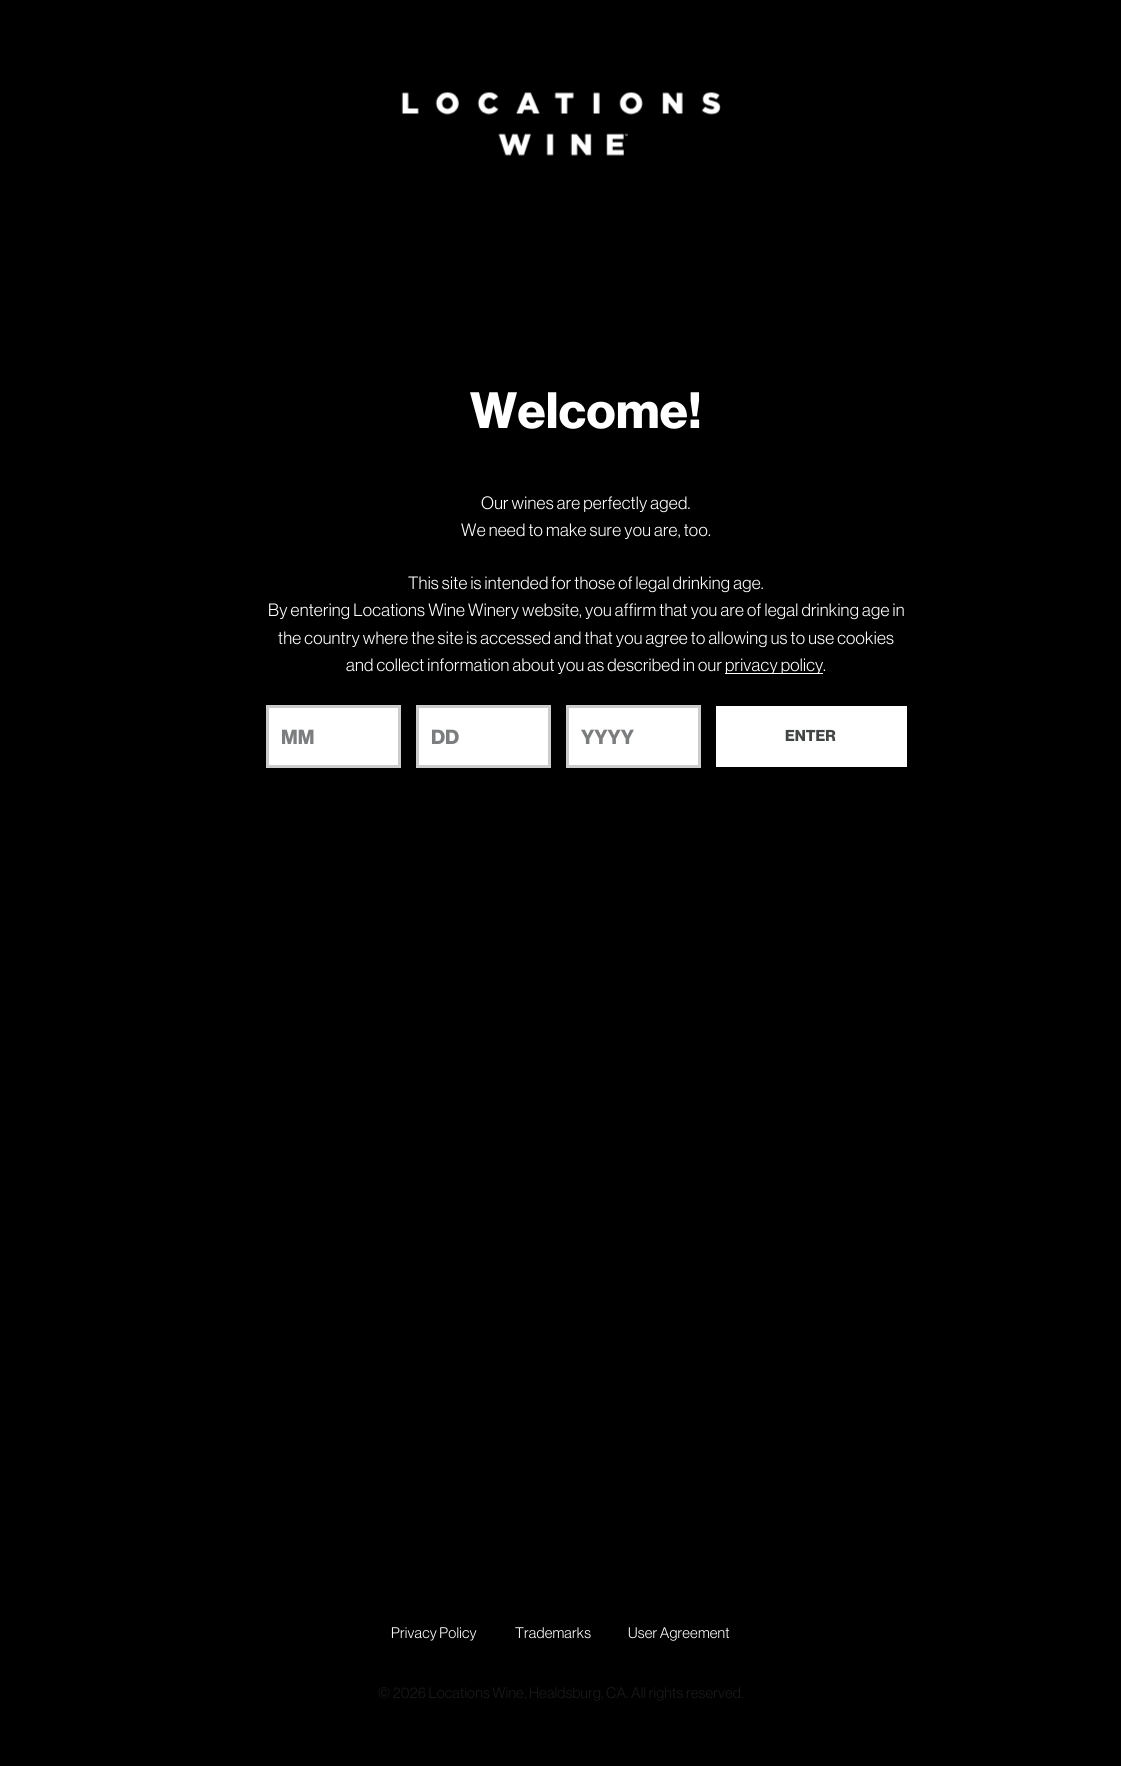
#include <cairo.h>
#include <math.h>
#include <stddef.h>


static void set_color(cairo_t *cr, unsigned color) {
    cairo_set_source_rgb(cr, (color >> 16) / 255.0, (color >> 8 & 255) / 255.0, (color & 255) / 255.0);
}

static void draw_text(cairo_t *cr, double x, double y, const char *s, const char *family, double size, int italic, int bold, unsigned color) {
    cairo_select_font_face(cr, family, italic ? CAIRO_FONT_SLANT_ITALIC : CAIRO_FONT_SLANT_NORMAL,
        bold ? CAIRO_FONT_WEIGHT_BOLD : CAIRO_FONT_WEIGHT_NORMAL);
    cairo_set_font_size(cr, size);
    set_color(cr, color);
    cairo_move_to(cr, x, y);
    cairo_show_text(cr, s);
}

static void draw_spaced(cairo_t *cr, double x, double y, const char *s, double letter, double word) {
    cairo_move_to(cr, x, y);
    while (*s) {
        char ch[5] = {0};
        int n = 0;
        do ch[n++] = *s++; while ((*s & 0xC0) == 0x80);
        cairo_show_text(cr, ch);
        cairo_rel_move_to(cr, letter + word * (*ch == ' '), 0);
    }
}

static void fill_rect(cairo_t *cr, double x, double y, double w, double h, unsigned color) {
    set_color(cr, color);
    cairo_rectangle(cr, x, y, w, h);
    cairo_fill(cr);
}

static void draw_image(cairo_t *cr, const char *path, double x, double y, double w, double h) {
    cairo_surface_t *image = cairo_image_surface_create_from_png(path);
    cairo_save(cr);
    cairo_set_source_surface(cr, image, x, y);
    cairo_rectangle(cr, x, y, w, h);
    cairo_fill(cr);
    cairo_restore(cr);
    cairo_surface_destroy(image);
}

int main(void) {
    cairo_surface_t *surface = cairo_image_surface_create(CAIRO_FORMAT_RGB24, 1121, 1766);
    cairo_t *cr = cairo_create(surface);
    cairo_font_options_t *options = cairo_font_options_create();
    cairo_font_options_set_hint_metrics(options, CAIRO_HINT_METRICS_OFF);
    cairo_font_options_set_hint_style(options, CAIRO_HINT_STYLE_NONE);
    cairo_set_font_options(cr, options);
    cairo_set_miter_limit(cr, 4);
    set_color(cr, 0x000000);
    cairo_paint(cr);
    draw_image(cr, "assets/img1.png", 401, 92, 320, 64);
    cairo_select_font_face(cr, "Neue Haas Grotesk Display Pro", CAIRO_FONT_SLANT_NORMAL, CAIRO_FONT_WEIGHT_BOLD);
    cairo_set_font_size(cr, 50);
    set_color(cr, 0xFFFFFF);
    draw_spaced(cr, 470, 428, "Welcome!", 0.5, 0);
    cairo_select_font_face(cr, "Neue Haas Grotesk Display Pro", CAIRO_FONT_SLANT_NORMAL, CAIRO_FONT_WEIGHT_NORMAL);
    cairo_set_font_size(cr, 17.5);
    draw_spaced(cr, 481, 509, "Our wines are perfectly aged.", 0.25, 0);
    draw_spaced(cr, 461, 536, "We need to make sure you are, too.", 0.25, 0);
    draw_spaced(cr, 408, 589, "This site is intended for those of legal drinking age.", 0.25, 0);
    draw_spaced(cr, 268, 616, "By entering Locations Wine Winery website, you affirm that you are of legal drinking age in", 0.25, 0);
    draw_spaced(cr, 278, 644, "the country where the site is accessed and that you agree to allowing us to use cookies", 0.25, 0);
    draw_spaced(cr, 346, 671, "and collect information about you as described in our", 0.25, 0);
    fill_rect(cr, 725, 673, 98, 1, 0xFFFFFF);
    draw_spaced(cr, 725, 671, "privacy policy", 0.25, 0);
    draw_spaced(cr, 823, 671, ".", 0.25, 0);
    cairo_rectangle(cr, 267.5, 706.5, 132, 60);
    cairo_fill_preserve(cr);
    set_color(cr, 0xCCCCCC);
    cairo_set_line_width(cr, 3);
    cairo_stroke(cr);
    draw_text(cr, 281, 744, "MM", "Neue Haas Grotesk Display Pro", 20, 0, 1, 0x7B7D7E);
    set_color(cr, 0xFFFFFF);
    cairo_rectangle(cr, 417.5, 706.5, 132, 60);
    cairo_fill_preserve(cr);
    set_color(cr, 0xCCCCCC);
    cairo_stroke(cr);
    draw_text(cr, 431, 744, "DD", "Neue Haas Grotesk Display Pro", 20, 0, 1, 0x7B7D7E);
    set_color(cr, 0xFFFFFF);
    cairo_rectangle(cr, 567.5, 706.5, 132, 60);
    cairo_fill_preserve(cr);
    set_color(cr, 0xCCCCCC);
    cairo_stroke(cr);
    draw_text(cr, 581, 744, "YYYY", "Neue Haas Grotesk Display Pro", 20, 0, 1, 0x7B7D7E);
    fill_rect(cr, 716, 706, 191, 61, 0xFFFFFF);
    draw_text(cr, 785, 741, "ENTER", "Neue Haas Grotesk Display Pro", 15.5, 0, 1, 0x424546);
    cairo_select_font_face(cr, "Neue Haas Grotesk Display Pro", CAIRO_FONT_SLANT_NORMAL, CAIRO_FONT_WEIGHT_NORMAL);
    cairo_set_font_size(cr, 15);
    set_color(cr, 0xFFFFFF);
    draw_spaced(cr, 391, 1638, "Privacy Policy", 0.18, 0);
    draw_spaced(cr, 515, 1638, "Trademarks", 0.18, 0);
    draw_spaced(cr, 628, 1638, "User Agreement", 0.18, 0);
    set_color(cr, 0x191919);
    draw_spaced(cr, 378, 1698, "© 2026 Locations Wine, Healdsburg, CA. All rights reserved.", 0.18, 0);
    cairo_surface_write_to_png(surface, "output.png");
    cairo_font_options_destroy(options);
    cairo_destroy(cr);
    cairo_surface_destroy(surface);
    return 0;
}
